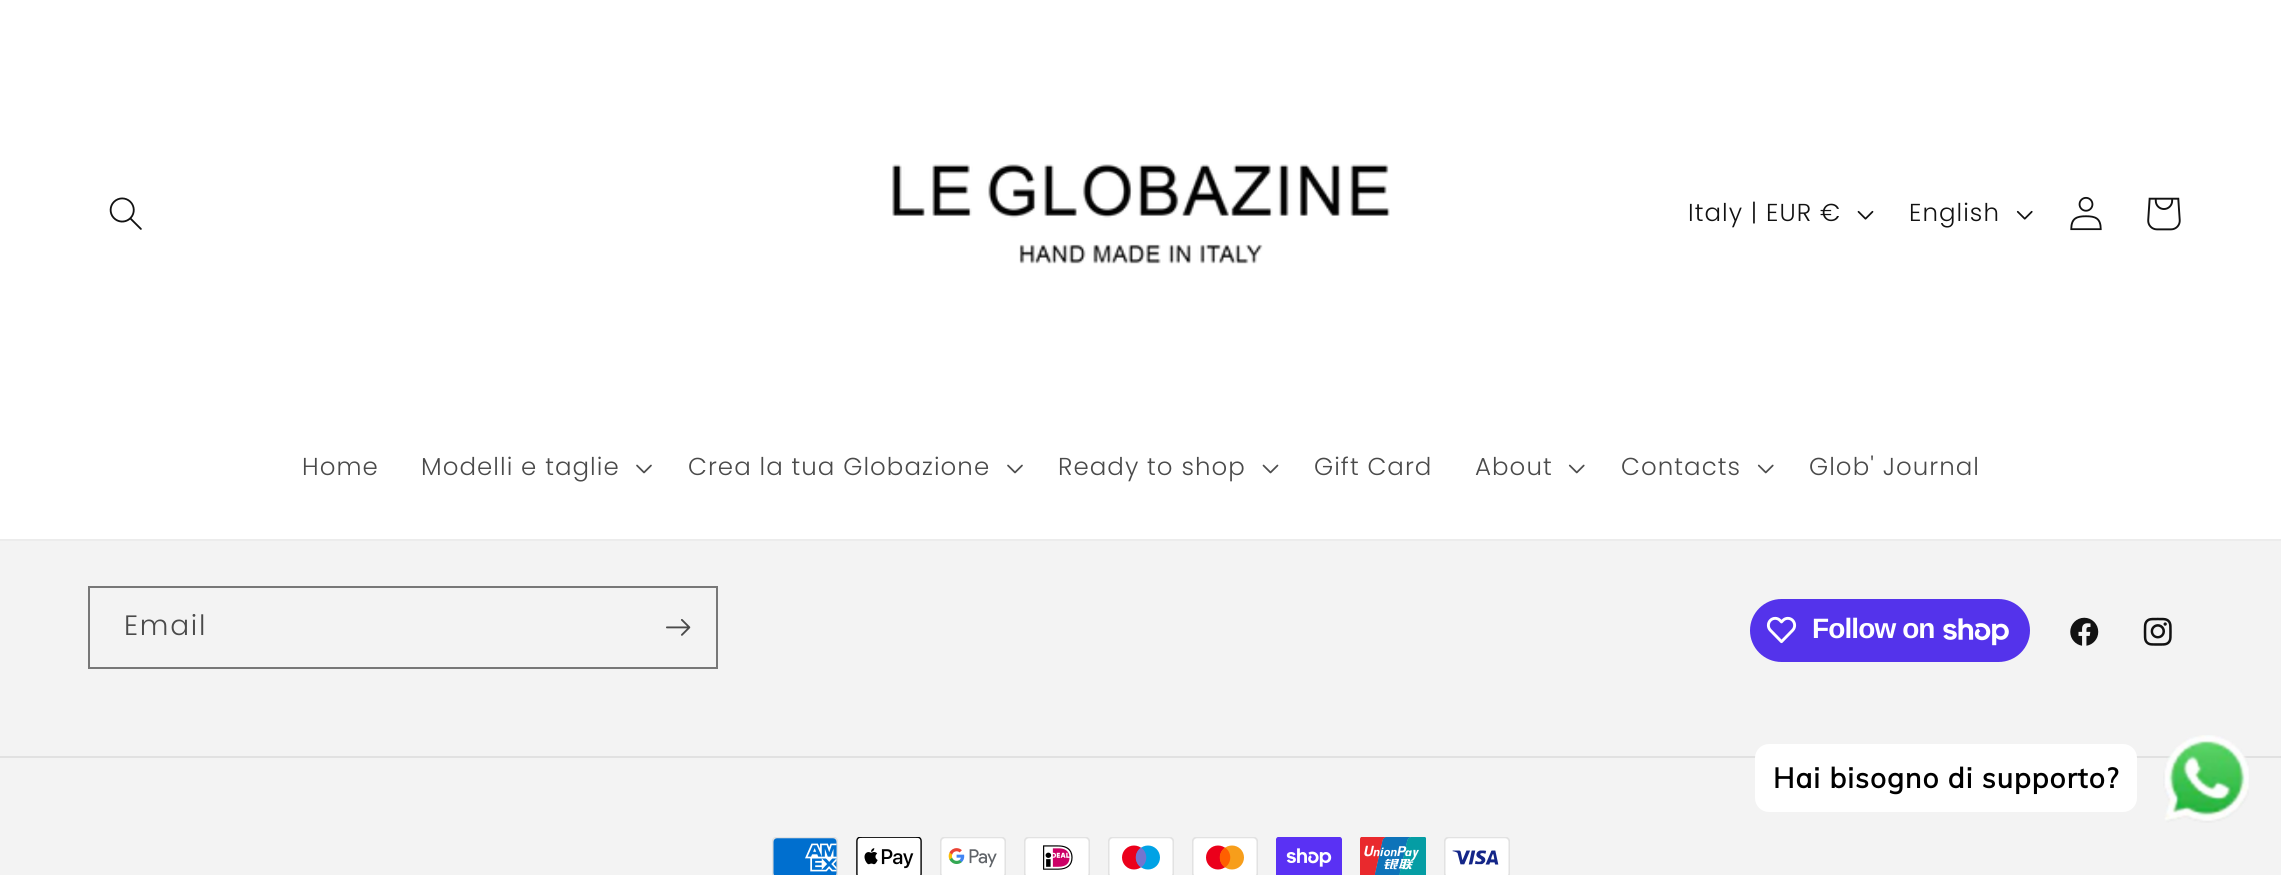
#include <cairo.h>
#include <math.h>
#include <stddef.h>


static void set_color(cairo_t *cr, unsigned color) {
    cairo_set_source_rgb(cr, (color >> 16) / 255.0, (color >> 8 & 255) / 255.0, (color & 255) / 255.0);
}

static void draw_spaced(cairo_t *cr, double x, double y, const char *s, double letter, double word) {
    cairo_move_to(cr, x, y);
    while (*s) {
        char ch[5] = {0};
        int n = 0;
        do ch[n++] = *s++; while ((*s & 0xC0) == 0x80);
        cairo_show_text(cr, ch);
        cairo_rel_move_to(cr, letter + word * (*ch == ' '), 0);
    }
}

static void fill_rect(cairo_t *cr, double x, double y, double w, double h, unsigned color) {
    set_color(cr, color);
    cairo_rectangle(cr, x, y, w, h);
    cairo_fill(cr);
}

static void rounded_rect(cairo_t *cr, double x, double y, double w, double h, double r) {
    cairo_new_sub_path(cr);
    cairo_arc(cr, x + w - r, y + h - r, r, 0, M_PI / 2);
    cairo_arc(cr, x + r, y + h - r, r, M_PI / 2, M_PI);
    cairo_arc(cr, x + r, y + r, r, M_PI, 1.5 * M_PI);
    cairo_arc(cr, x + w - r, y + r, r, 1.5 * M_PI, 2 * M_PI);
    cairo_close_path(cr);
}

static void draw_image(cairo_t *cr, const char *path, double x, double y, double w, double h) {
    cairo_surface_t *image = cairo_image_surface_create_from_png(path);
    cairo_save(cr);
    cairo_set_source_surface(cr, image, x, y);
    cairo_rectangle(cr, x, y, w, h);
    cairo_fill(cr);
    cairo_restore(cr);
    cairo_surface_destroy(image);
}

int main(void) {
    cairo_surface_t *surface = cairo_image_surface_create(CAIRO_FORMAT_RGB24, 2281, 875);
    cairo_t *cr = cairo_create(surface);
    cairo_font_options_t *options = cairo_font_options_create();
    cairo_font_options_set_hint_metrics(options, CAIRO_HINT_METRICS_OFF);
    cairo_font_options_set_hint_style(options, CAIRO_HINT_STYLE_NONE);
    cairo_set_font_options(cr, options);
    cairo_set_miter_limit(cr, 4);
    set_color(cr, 0xF3F3F3);
    cairo_paint(cr);
    fill_rect(cr, 0, 0, 2281, 539, 0xFFFFFF);
    fill_rect(cr, 0, 539, 2281, 2, 0xECECEC);
    draw_image(cr, "assets/img1.png", 109, 197, 33, 33);
    draw_image(cr, "assets/img2.png", 892, 164, 498, 100);
    cairo_select_font_face(cr, "Poppins Light", CAIRO_FONT_SLANT_NORMAL, CAIRO_FONT_WEIGHT_NORMAL);
    cairo_set_font_size(cr, 24.5);
    set_color(cr, 0x121212);
    draw_spaced(cr, 1688, 221, "Italy | EUR €", 1.05, 0);
    draw_image(cr, "assets/img3.png", 1857, 210, 17, 10);
    draw_spaced(cr, 1909, 221, "English", 1.05, 0);
    draw_image(cr, "assets/img4.png", 2016, 210, 17, 10);
    draw_image(cr, "assets/img5.png", 2070, 196, 32, 35);
    draw_image(cr, "assets/img6.png", 2147, 197, 34, 34);
    set_color(cr, 0x4A4A4A);
    draw_spaced(cr, 302, 475, "Home", 1.05, 0);
    draw_spaced(cr, 421, 475, "Modelli e taglie", 1.05, 0);
    draw_image(cr, "assets/img7.png", 636, 464, 16, 10);
    draw_spaced(cr, 688, 475, "Crea la tua Globazione", 1.05, 0);
    draw_image(cr, "assets/img7.png", 1007, 464, 16, 10);
    draw_spaced(cr, 1058, 475, "Ready to shop", 1.05, 0);
    draw_image(cr, "assets/img8.png", 1262, 464, 17, 10);
    draw_spaced(cr, 1314, 475, "Gift Card", 1.05, 0);
    draw_spaced(cr, 1475, 475, "About", 1.05, 0);
    draw_image(cr, "assets/img9.png", 1568, 464, 17, 10);
    draw_spaced(cr, 1621, 475, "Contacts", 1.05, 0);
    draw_image(cr, "assets/img9.png", 1757, 464, 17, 10);
    draw_spaced(cr, 1809, 475, "Glob' Journal", 1.05, 0);
    cairo_rectangle(cr, 89, 587, 628, 81);
    set_color(cr, 0x777777);
    cairo_stroke(cr);
    cairo_set_font_size(cr, 28);
    set_color(cr, 0x4A4A4A);
    draw_spaced(cr, 124, 635, "Email", 1.75, 0);
    draw_image(cr, "assets/img10.png", 666, 619, 25, 17);
    set_color(cr, 0x5433EB);
    rounded_rect(cr, 1750, 599, 280, 63, 31.5);
    cairo_fill(cr);
    draw_image(cr, "assets/img11.png", 1766, 616, 31, 28);
    cairo_select_font_face(cr, "Liberation Sans", CAIRO_FONT_SLANT_NORMAL, CAIRO_FONT_WEIGHT_BOLD);
    set_color(cr, 0xFFFFFF);
    draw_spaced(cr, 1812, 638, "Follow on", -0.9, 0);
    draw_image(cr, "assets/img12.png", 1943, 618, 66, 28);
    draw_image(cr, "assets/img13.png", 2070, 617, 29, 29);
    draw_image(cr, "assets/img14.png", 2143, 617, 29, 29);
    fill_rect(cr, 0, 756, 2281, 2, 0xE1E1E1);
    draw_image(cr, "assets/img15.png", 772, 837, 66, 38);
    draw_image(cr, "assets/img16.png", 856, 837, 66, 38);
    draw_image(cr, "assets/img17.png", 940, 837, 66, 38);
    draw_image(cr, "assets/img18.png", 1024, 837, 66, 38);
    draw_image(cr, "assets/img19.png", 1108, 837, 66, 38);
    draw_image(cr, "assets/img20.png", 1192, 837, 66, 38);
    draw_image(cr, "assets/img21.png", 1276, 837, 66, 38);
    draw_image(cr, "assets/img22.png", 1360, 837, 66, 38);
    draw_image(cr, "assets/img23.png", 1444, 837, 66, 38);
    draw_image(cr, "assets/img24.png", 2163, 735, 86, 88);
    set_color(cr, 0xFFFFFF);
    rounded_rect(cr, 1755, 744, 382, 68, 14);
    cairo_fill(cr);
    cairo_select_font_face(cr, "Muli", CAIRO_FONT_SLANT_NORMAL, CAIRO_FONT_WEIGHT_BOLD);
    set_color(cr, 0x000000);
    draw_spaced(cr, 1773, 788, "Hai bisogno di supporto?", 1.05, 0);
    cairo_surface_write_to_png(surface, "output.png");
    cairo_font_options_destroy(options);
    cairo_destroy(cr);
    cairo_surface_destroy(surface);
    return 0;
}
